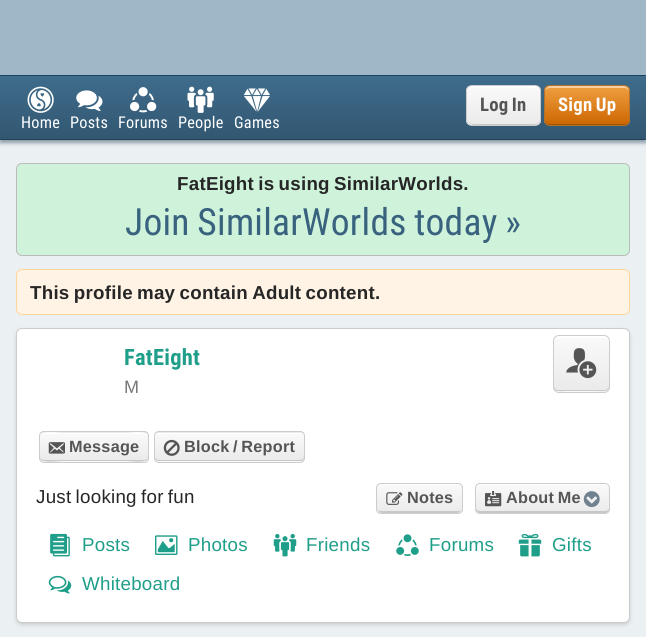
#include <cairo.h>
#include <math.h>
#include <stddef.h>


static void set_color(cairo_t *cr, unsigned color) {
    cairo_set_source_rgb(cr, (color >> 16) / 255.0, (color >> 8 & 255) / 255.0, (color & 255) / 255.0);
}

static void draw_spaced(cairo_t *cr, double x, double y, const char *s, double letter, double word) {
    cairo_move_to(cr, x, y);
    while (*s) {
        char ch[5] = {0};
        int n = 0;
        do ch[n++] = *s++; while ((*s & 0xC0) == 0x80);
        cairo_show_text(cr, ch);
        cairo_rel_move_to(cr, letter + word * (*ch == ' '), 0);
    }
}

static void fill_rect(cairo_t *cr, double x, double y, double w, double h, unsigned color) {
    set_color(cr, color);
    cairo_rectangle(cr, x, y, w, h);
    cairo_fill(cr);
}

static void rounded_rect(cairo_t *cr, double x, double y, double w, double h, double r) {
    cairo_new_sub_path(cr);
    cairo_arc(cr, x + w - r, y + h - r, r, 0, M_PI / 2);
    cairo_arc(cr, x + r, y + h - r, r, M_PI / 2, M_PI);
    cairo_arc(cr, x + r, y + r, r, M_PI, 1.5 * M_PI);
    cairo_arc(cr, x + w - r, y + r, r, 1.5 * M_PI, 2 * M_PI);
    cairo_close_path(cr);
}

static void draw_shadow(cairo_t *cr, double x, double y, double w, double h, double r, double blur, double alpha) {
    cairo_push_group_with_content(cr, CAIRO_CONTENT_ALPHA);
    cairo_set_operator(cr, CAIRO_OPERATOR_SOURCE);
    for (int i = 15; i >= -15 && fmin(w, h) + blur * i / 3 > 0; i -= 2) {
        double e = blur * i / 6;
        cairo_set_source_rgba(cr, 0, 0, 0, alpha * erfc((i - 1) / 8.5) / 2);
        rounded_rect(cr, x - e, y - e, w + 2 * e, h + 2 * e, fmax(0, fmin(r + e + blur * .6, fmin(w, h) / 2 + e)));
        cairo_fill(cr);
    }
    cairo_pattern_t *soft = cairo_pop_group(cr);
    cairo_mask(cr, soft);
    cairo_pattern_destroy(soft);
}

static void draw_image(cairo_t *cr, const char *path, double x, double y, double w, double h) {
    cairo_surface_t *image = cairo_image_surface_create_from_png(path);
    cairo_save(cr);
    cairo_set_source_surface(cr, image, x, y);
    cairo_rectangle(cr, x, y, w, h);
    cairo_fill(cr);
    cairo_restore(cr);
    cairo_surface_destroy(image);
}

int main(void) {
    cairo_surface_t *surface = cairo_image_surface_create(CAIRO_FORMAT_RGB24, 646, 637);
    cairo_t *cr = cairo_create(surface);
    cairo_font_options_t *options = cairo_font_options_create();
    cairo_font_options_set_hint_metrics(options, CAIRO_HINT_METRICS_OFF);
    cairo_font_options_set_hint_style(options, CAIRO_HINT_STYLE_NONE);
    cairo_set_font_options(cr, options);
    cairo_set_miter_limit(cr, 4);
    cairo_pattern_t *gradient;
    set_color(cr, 0xEBF0F2);
    cairo_paint(cr);
    set_color(cr, 0x264459);
    draw_shadow(cr, 0, 78, 646, 65, 0, 2, 0.5);
    fill_rect(cr, 0, 0, 646, 75, 0x9FB7C7);
    gradient = cairo_pattern_create_linear(323, 76, 323, 139);
    cairo_pattern_add_color_stop_rgba(gradient, 0, 0.247, 0.424, 0.549, 1);
    cairo_pattern_add_color_stop_rgba(gradient, 1, 0.196, 0.341, 0.443, 1);
    cairo_set_source(cr, gradient);
    cairo_pattern_destroy(gradient);
    cairo_rectangle(cr, 0, 76, 646, 63);
    cairo_fill(cr);
    fill_rect(cr, 0, 75, 646, 1, 0x1F425C);
    fill_rect(cr, 0, 139, 646, 1, 0x1F425C);
    cairo_save(cr);
    rounded_rect(cr, 466, 85, 75, 41, 6);
    cairo_clip(cr);
    gradient = cairo_pattern_create_linear(504, 86, 504, 125);
    cairo_pattern_add_color_stop_rgba(gradient, 0, 0.98, 0.98, 0.98, 1);
    cairo_pattern_add_color_stop_rgba(gradient, 1, 0.918, 0.918, 0.918, 1);
    cairo_set_source(cr, gradient);
    cairo_pattern_destroy(gradient);
    cairo_rectangle(cr, 466, 86, 75, 39);
    cairo_fill(cr);
    cairo_restore(cr);
    set_color(cr, 0xC7C7C7);
    cairo_new_path(cr);
    cairo_move_to(cr, 468, 119);
    cairo_curve_to(cr, 468, 127, 478, 125, 483, 125);
    cairo_line_to(cr, 525, 125);
    cairo_curve_to(cr, 530, 125, 540, 127, 540, 119);
    cairo_curve_to(cr, 540, 122, 538, 124, 535, 124);
    cairo_line_to(cr, 472, 124);
    cairo_curve_to(cr, 470, 124, 468, 122, 468, 119);
    cairo_close_path(cr);
    cairo_fill(cr);
    set_color(cr, 0xFFFFFF);
    cairo_new_path(cr);
    cairo_move_to(cr, 472, 88);
    cairo_line_to(cr, 535, 88);
    cairo_curve_to(cr, 538, 88, 540, 90, 540, 92);
    cairo_curve_to(cr, 540, 84, 530, 86, 525, 86);
    cairo_line_to(cr, 483, 86);
    cairo_curve_to(cr, 478, 86, 468, 84, 468, 92);
    cairo_curve_to(cr, 468, 90, 470, 88, 472, 88);
    cairo_close_path(cr);
    cairo_fill(cr);
    rounded_rect(cr, 466.5, 85.5, 74, 40, 5.5);
    set_color(cr, 0xCCCCCC);
    cairo_set_line_width(cr, 1);
    cairo_stroke(cr);
    cairo_select_font_face(cr, "Roboto Condensed", CAIRO_FONT_SLANT_NORMAL, CAIRO_FONT_WEIGHT_BOLD);
    cairo_set_font_size(cr, 18.75);
    set_color(cr, 0x555555);
    draw_spaced(cr, 480, 111, "Log In", 0.25, -1.25);
    cairo_save(cr);
    rounded_rect(cr, 544, 85, 86, 41, 6);
    cairo_clip(cr);
    gradient = cairo_pattern_create_linear(587, 86, 587, 125);
    cairo_pattern_add_color_stop_rgba(gradient, 0, 0.941, 0.624, 0.259, 1);
    cairo_pattern_add_color_stop_rgba(gradient, 1, 0.8, 0.4, 0, 1);
    cairo_set_source(cr, gradient);
    cairo_pattern_destroy(gradient);
    cairo_rectangle(cr, 544, 86, 86, 39);
    cairo_fill(cr);
    cairo_restore(cr);
    set_color(cr, 0xA35201);
    cairo_new_path(cr);
    cairo_move_to(cr, 545, 119);
    cairo_curve_to(cr, 545, 128, 557, 125, 562, 125);
    cairo_line_to(cr, 612, 125);
    cairo_curve_to(cr, 617, 125, 629, 128, 629, 119);
    cairo_curve_to(cr, 629, 122, 627, 124, 624, 124);
    cairo_line_to(cr, 550, 124);
    cairo_curve_to(cr, 547, 124, 545, 122, 545, 119);
    cairo_close_path(cr);
    cairo_fill(cr);
    cairo_set_source_rgba(cr, 1, 1, 1, 0.5);
    cairo_new_path(cr);
    cairo_move_to(cr, 550, 88);
    cairo_line_to(cr, 624, 88);
    cairo_curve_to(cr, 627, 88, 629, 90, 629, 92);
    cairo_curve_to(cr, 629, 83, 617, 86, 612, 86);
    cairo_line_to(cr, 562, 86);
    cairo_curve_to(cr, 557, 86, 545, 83, 545, 92);
    cairo_curve_to(cr, 545, 90, 547, 88, 550, 88);
    cairo_close_path(cr);
    cairo_fill(cr);
    rounded_rect(cr, 544.5, 85.5, 85, 40, 5.5);
    set_color(cr, 0xB2742C);
    cairo_stroke(cr);
    set_color(cr, 0xFFFFFF);
    draw_spaced(cr, 558, 111, "Sign Up", 0.25, -1.25);
    draw_image(cr, "assets/img1.png", 27, 86, 27, 27);
    cairo_select_font_face(cr, "Roboto Condensed", CAIRO_FONT_SLANT_NORMAL, CAIRO_FONT_WEIGHT_NORMAL);
    cairo_set_font_size(cr, 16.25);
    draw_spaced(cr, 21, 128, "Home", 0.25, 0);
    draw_image(cr, "assets/img2.png", 76, 90, 27, 21);
    draw_spaced(cr, 70, 128, "Posts", 0.25, 0);
    draw_image(cr, "assets/img3.png", 130, 87, 27, 26);
    draw_spaced(cr, 118, 128, "Forums", 0.25, 0);
    draw_image(cr, "assets/img4.png", 187, 86, 27, 27);
    draw_spaced(cr, 178, 128, "People", 0.25, 0);
    draw_image(cr, "assets/img5.png", 243, 88, 27, 24);
    draw_spaced(cr, 234, 128, "Games", 0.25, 0);
    set_color(cr, 0xCEF3DA);
    rounded_rect(cr, 16.5, 163.5, 613, 92, 5.5);
    cairo_fill_preserve(cr);
    set_color(cr, 0xBBBBBB);
    cairo_stroke(cr);
    cairo_select_font_face(cr, "Liberation Sans", CAIRO_FONT_SLANT_NORMAL, CAIRO_FONT_WEIGHT_BOLD);
    cairo_set_font_size(cr, 18.75);
    set_color(cr, 0x262626);
    draw_spaced(cr, 177, 190, "FatEight is using SimilarWorlds.", 0.25, -1.25);
    cairo_select_font_face(cr, "Roboto Condensed", CAIRO_FONT_SLANT_NORMAL, CAIRO_FONT_WEIGHT_NORMAL);
    cairo_set_font_size(cr, 37.5);
    set_color(cr, 0x39627F);
    draw_spaced(cr, 125, 235, "Join SimilarWorlds today »", 0.25, -1.25);
    set_color(cr, 0xFFF3E5);
    rounded_rect(cr, 16.5, 269.5, 613, 45, 5.5);
    cairo_fill_preserve(cr);
    set_color(cr, 0xFFD599);
    cairo_stroke(cr);
    cairo_select_font_face(cr, "Liberation Sans", CAIRO_FONT_SLANT_NORMAL, CAIRO_FONT_WEIGHT_BOLD);
    cairo_set_font_size(cr, 18.75);
    set_color(cr, 0x262626);
    draw_spaced(cr, 30, 299, "This profile may contain Adult content.", 0.25, -1.25);
    set_color(cr, 0x808080);
    draw_shadow(cr, 16, 330, 614, 295, 6, 2, 0.3);
    set_color(cr, 0xFFFFFF);
    rounded_rect(cr, 16.5, 328.5, 613, 294, 5.5);
    cairo_fill_preserve(cr);
    set_color(cr, 0xCCCCCC);
    cairo_stroke(cr);
    cairo_select_font_face(cr, "Roboto Condensed", CAIRO_FONT_SLANT_NORMAL, CAIRO_FONT_WEIGHT_BOLD);
    cairo_set_font_size(cr, 22.5);
    set_color(cr, 0x1F9E89);
    draw_spaced(cr, 124, 365, "FatEight", 0.25, 0);
    cairo_select_font_face(cr, "Liberation Sans", CAIRO_FONT_SLANT_NORMAL, CAIRO_FONT_WEIGHT_NORMAL);
    cairo_set_font_size(cr, 18);
    set_color(cr, 0x777777);
    draw_spaced(cr, 124, 393, "M", 0.25, 0);
    cairo_save(cr);
    rounded_rect(cr, 553, 335, 57, 58, 6);
    cairo_clip(cr);
    gradient = cairo_pattern_create_linear(581, 336, 581, 391);
    cairo_pattern_add_color_stop_rgba(gradient, 0, 0.98, 0.98, 0.98, 1);
    cairo_pattern_add_color_stop_rgba(gradient, 1, 0.918, 0.918, 0.918, 1);
    cairo_set_source(cr, gradient);
    cairo_pattern_destroy(gradient);
    cairo_rectangle(cr, 553, 336, 57, 55);
    cairo_fill(cr);
    gradient = cairo_pattern_create_linear(581, 391, 581, 446);
    cairo_pattern_add_color_stop_rgba(gradient, 0, 0.98, 0.98, 0.98, 1);
    cairo_pattern_add_color_stop_rgba(gradient, 1, 0.918, 0.918, 0.918, 1);
    cairo_set_source(cr, gradient);
    cairo_pattern_destroy(gradient);
    cairo_rectangle(cr, 553, 391, 57, 2);
    cairo_fill(cr);
    cairo_restore(cr);
    set_color(cr, 0xC7C7C7);
    cairo_new_path(cr);
    cairo_move_to(cr, 554, 385);
    cairo_curve_to(cr, 554, 393, 561, 391, 566, 391);
    cairo_line_to(cr, 596, 391);
    cairo_curve_to(cr, 602, 391, 609, 393, 609, 385);
    cairo_curve_to(cr, 609, 388, 607, 390, 604, 390);
    cairo_line_to(cr, 559, 390);
    cairo_curve_to(cr, 556, 390, 554, 388, 554, 385);
    cairo_close_path(cr);
    cairo_fill(cr);
    set_color(cr, 0xFFFFFF);
    cairo_new_path(cr);
    cairo_move_to(cr, 559, 338);
    cairo_line_to(cr, 604, 338);
    cairo_curve_to(cr, 607, 338, 609, 340, 609, 342);
    cairo_curve_to(cr, 609, 334, 602, 336, 596, 336);
    cairo_line_to(cr, 566, 336);
    cairo_curve_to(cr, 561, 336, 554, 334, 554, 342);
    cairo_curve_to(cr, 554, 340, 556, 338, 559, 338);
    cairo_close_path(cr);
    cairo_fill(cr);
    rounded_rect(cr, 553.5, 335.5, 56, 57, 5.5);
    set_color(cr, 0xCCCCCC);
    cairo_stroke(cr);
    draw_image(cr, "assets/img6.png", 566, 348, 31, 31);
    cairo_save(cr);
    rounded_rect(cr, 39, 431, 110, 32, 5);
    cairo_clip(cr);
    gradient = cairo_pattern_create_linear(94, 404, 94, 433);
    cairo_pattern_add_color_stop_rgba(gradient, 0, 0.98, 0.98, 0.98, 1);
    cairo_pattern_add_color_stop_rgba(gradient, 1, 0.918, 0.918, 0.918, 1);
    cairo_set_source(cr, gradient);
    cairo_pattern_destroy(gradient);
    cairo_rectangle(cr, 39, 431, 110, 2);
    cairo_fill(cr);
    gradient = cairo_pattern_create_linear(94, 433, 94, 461);
    cairo_pattern_add_color_stop_rgba(gradient, 0, 0.98, 0.98, 0.98, 1);
    cairo_pattern_add_color_stop_rgba(gradient, 1, 0.918, 0.918, 0.918, 1);
    cairo_set_source(cr, gradient);
    cairo_pattern_destroy(gradient);
    cairo_rectangle(cr, 39, 433, 110, 28);
    cairo_fill(cr);
    gradient = cairo_pattern_create_linear(94, 461, 94, 490);
    cairo_pattern_add_color_stop_rgba(gradient, 0, 0.98, 0.98, 0.98, 1);
    cairo_pattern_add_color_stop_rgba(gradient, 1, 0.918, 0.918, 0.918, 1);
    cairo_set_source(cr, gradient);
    cairo_pattern_destroy(gradient);
    cairo_rectangle(cr, 39, 461, 110, 2);
    cairo_fill(cr);
    cairo_restore(cr);
    cairo_set_source_rgba(cr, 0, 0, 0, 0.15);
    cairo_new_path(cr);
    cairo_move_to(cr, 40, 456);
    cairo_curve_to(cr, 40, 465, 57, 461, 61, 461);
    cairo_line_to(cr, 127, 461);
    cairo_curve_to(cr, 131, 461, 148, 465, 148, 456);
    cairo_curve_to(cr, 148, 458, 146, 460, 144, 460);
    cairo_line_to(cr, 44, 460);
    cairo_curve_to(cr, 42, 460, 40, 458, 40, 456);
    cairo_close_path(cr);
    cairo_fill(cr);
    set_color(cr, 0xFFFFFF);
    cairo_new_path(cr);
    cairo_move_to(cr, 44, 434);
    cairo_line_to(cr, 144, 434);
    cairo_curve_to(cr, 146, 434, 148, 435, 148, 438);
    cairo_curve_to(cr, 148, 429, 131, 433, 127, 433);
    cairo_line_to(cr, 61, 433);
    cairo_curve_to(cr, 57, 433, 40, 429, 40, 438);
    cairo_curve_to(cr, 40, 435, 42, 434, 44, 434);
    cairo_close_path(cr);
    cairo_fill(cr);
    rounded_rect(cr, 39.5, 431.5, 109, 31, 4.5);
    set_color(cr, 0xCCCCCC);
    cairo_stroke(cr);
    draw_image(cr, "assets/img7.png", 48, 442, 17, 12);
    cairo_select_font_face(cr, "Liberation Sans", CAIRO_FONT_SLANT_NORMAL, CAIRO_FONT_WEIGHT_BOLD);
    cairo_set_font_size(cr, 16.25);
    set_color(cr, 0x555555);
    draw_spaced(cr, 69, 452, "Message", 0.25, 0);
    cairo_save(cr);
    rounded_rect(cr, 154, 431, 151, 32, 5);
    cairo_clip(cr);
    gradient = cairo_pattern_create_linear(229, 404, 229, 433);
    cairo_pattern_add_color_stop_rgba(gradient, 0, 0.98, 0.98, 0.98, 1);
    cairo_pattern_add_color_stop_rgba(gradient, 1, 0.918, 0.918, 0.918, 1);
    cairo_set_source(cr, gradient);
    cairo_pattern_destroy(gradient);
    cairo_rectangle(cr, 154, 431, 151, 2);
    cairo_fill(cr);
    gradient = cairo_pattern_create_linear(229, 433, 229, 461);
    cairo_pattern_add_color_stop_rgba(gradient, 0, 0.98, 0.98, 0.98, 1);
    cairo_pattern_add_color_stop_rgba(gradient, 1, 0.918, 0.918, 0.918, 1);
    cairo_set_source(cr, gradient);
    cairo_pattern_destroy(gradient);
    cairo_rectangle(cr, 154, 433, 151, 28);
    cairo_fill(cr);
    gradient = cairo_pattern_create_linear(229, 461, 229, 490);
    cairo_pattern_add_color_stop_rgba(gradient, 0, 0.98, 0.98, 0.98, 1);
    cairo_pattern_add_color_stop_rgba(gradient, 1, 0.918, 0.918, 0.918, 1);
    cairo_set_source(cr, gradient);
    cairo_pattern_destroy(gradient);
    cairo_rectangle(cr, 154, 461, 151, 2);
    cairo_fill(cr);
    cairo_restore(cr);
    set_color(cr, 0xC7C7C7);
    cairo_new_path(cr);
    cairo_move_to(cr, 155, 456);
    cairo_curve_to(cr, 155, 458, 156, 460, 158, 461);
    cairo_line_to(cr, 300, 461);
    cairo_curve_to(cr, 303, 461, 304, 459, 304, 456);
    cairo_line_to(cr, 303, 459);
    cairo_line_to(cr, 300, 460);
    cairo_line_to(cr, 159, 460);
    cairo_curve_to(cr, 157, 460, 155, 458, 155, 456);
    cairo_close_path(cr);
    cairo_fill(cr);
    set_color(cr, 0xFFFFFF);
    cairo_new_path(cr);
    cairo_move_to(cr, 159, 434);
    cairo_line_to(cr, 300, 434);
    cairo_curve_to(cr, 302, 434, 304, 435, 304, 438);
    cairo_curve_to(cr, 304, 436, 303, 434, 301, 433);
    cairo_line_to(cr, 159, 433);
    cairo_curve_to(cr, 156, 433, 155, 435, 155, 438);
    cairo_curve_to(cr, 155, 435, 157, 434, 159, 434);
    cairo_close_path(cr);
    cairo_fill(cr);
    rounded_rect(cr, 154.5, 431.5, 150, 31, 4.5);
    set_color(cr, 0xCCCCCC);
    cairo_stroke(cr);
    draw_image(cr, "assets/img8.png", 163, 439, 17, 17);
    set_color(cr, 0x555555);
    draw_spaced(cr, 184, 452, "Block / Report", 0.25, -1.25);
    cairo_select_font_face(cr, "Liberation Sans", CAIRO_FONT_SLANT_NORMAL, CAIRO_FONT_WEIGHT_NORMAL);
    cairo_set_font_size(cr, 18.75);
    set_color(cr, 0x262626);
    draw_spaced(cr, 36, 503, "Just looking for fun", 0.25, -1.25);
    cairo_save(cr);
    rounded_rect(cr, 376, 483, 87, 31, 5);
    cairo_clip(cr);
    gradient = cairo_pattern_create_linear(419, 484, 419, 513);
    cairo_pattern_add_color_stop_rgba(gradient, 0, 0.98, 0.98, 0.98, 1);
    cairo_pattern_add_color_stop_rgba(gradient, 1, 0.918, 0.918, 0.918, 1);
    cairo_set_source(cr, gradient);
    cairo_pattern_destroy(gradient);
    cairo_rectangle(cr, 376, 484, 87, 29);
    cairo_fill(cr);
    cairo_restore(cr);
    cairo_set_source_rgba(cr, 0, 0, 0, 0.15);
    cairo_new_path(cr);
    cairo_move_to(cr, 378, 508);
    cairo_curve_to(cr, 378, 516, 390, 513, 394, 513);
    cairo_line_to(cr, 444, 513);
    cairo_curve_to(cr, 449, 513, 461, 516, 461, 508);
    cairo_curve_to(cr, 461, 510, 460, 511, 458, 511);
    cairo_line_to(cr, 381, 511);
    cairo_curve_to(cr, 379, 511, 378, 510, 378, 508);
    cairo_close_path(cr);
    cairo_fill(cr);
    set_color(cr, 0xFFFFFF);
    cairo_new_path(cr);
    cairo_move_to(cr, 381, 485);
    cairo_line_to(cr, 458, 485);
    cairo_curve_to(cr, 460, 485, 461, 487, 461, 489);
    cairo_curve_to(cr, 461, 481, 449, 484, 444, 484);
    cairo_line_to(cr, 394, 484);
    cairo_curve_to(cr, 390, 484, 378, 481, 378, 489);
    cairo_curve_to(cr, 378, 487, 379, 485, 381, 485);
    cairo_close_path(cr);
    cairo_fill(cr);
    rounded_rect(cr, 376.5, 483.5, 86, 30, 4.5);
    set_color(cr, 0xCCCCCC);
    cairo_stroke(cr);
    draw_image(cr, "assets/img9.png", 386, 492, 17, 13);
    cairo_select_font_face(cr, "Liberation Sans", CAIRO_FONT_SLANT_NORMAL, CAIRO_FONT_WEIGHT_BOLD);
    cairo_set_font_size(cr, 16.25);
    set_color(cr, 0x555555);
    draw_spaced(cr, 407, 503, "Notes", 0.25, 0);
    cairo_save(cr);
    rounded_rect(cr, 475, 483, 135, 31, 5);
    cairo_clip(cr);
    gradient = cairo_pattern_create_linear(543, 484, 543, 513);
    cairo_pattern_add_color_stop_rgba(gradient, 0, 0.98, 0.98, 0.98, 1);
    cairo_pattern_add_color_stop_rgba(gradient, 1, 0.918, 0.918, 0.918, 1);
    cairo_set_source(cr, gradient);
    cairo_pattern_destroy(gradient);
    cairo_rectangle(cr, 475, 484, 135, 29);
    cairo_fill(cr);
    cairo_restore(cr);
    set_color(cr, 0xC7C7C7);
    cairo_new_path(cr);
    cairo_move_to(cr, 476, 508);
    cairo_line_to(cr, 476, 509);
    cairo_curve_to(cr, 476, 511, 478, 513, 480, 513);
    cairo_line_to(cr, 605, 513);
    cairo_curve_to(cr, 607, 513, 609, 511, 609, 509);
    cairo_line_to(cr, 609, 508);
    cairo_curve_to(cr, 609, 510, 607, 511, 605, 511);
    cairo_line_to(cr, 480, 511);
    cairo_curve_to(cr, 478, 511, 476, 510, 476, 508);
    cairo_close_path(cr);
    cairo_fill(cr);
    set_color(cr, 0xFFFFFF);
    cairo_new_path(cr);
    cairo_move_to(cr, 480, 485);
    cairo_line_to(cr, 605, 485);
    cairo_curve_to(cr, 607, 485, 609, 487, 609, 489);
    cairo_line_to(cr, 609, 488);
    cairo_curve_to(cr, 609, 486, 607, 484, 605, 484);
    cairo_line_to(cr, 480, 484);
    cairo_curve_to(cr, 478, 484, 476, 486, 476, 488);
    cairo_line_to(cr, 476, 489);
    cairo_curve_to(cr, 476, 487, 478, 485, 480, 485);
    cairo_close_path(cr);
    cairo_fill(cr);
    rounded_rect(cr, 475.5, 483.5, 134, 30, 4.5);
    set_color(cr, 0xCCCCCC);
    cairo_stroke(cr);
    draw_image(cr, "assets/img10.png", 485, 491, 17, 16);
    set_color(cr, 0x555555);
    draw_spaced(cr, 506, 503, "About Me", 0.25, -1.25);
    draw_image(cr, "assets/img11.png", 583, 491, 17, 17);
    draw_image(cr, "assets/img12.png", 50, 533, 20, 24);
    cairo_select_font_face(cr, "Liberation Sans", CAIRO_FONT_SLANT_NORMAL, CAIRO_FONT_WEIGHT_NORMAL);
    cairo_set_font_size(cr, 18.75);
    set_color(cr, 0x1F9E89);
    draw_spaced(cr, 82, 551, "Posts", 0.25, 0);
    draw_image(cr, "assets/img13.png", 155, 535, 23, 20);
    draw_spaced(cr, 188, 551, "Photos", 0.25, 0);
    draw_image(cr, "assets/img14.png", 273, 533, 24, 24);
    draw_spaced(cr, 306, 551, "Friends", 0.25, 0);
    draw_image(cr, "assets/img15.png", 396, 534, 23, 22);
    draw_spaced(cr, 429, 551, "Forums", 0.25, 0);
    draw_image(cr, "assets/img16.png", 518, 533, 24, 24);
    draw_spaced(cr, 552, 551, "Gifts", 0.25, 0);
    draw_image(cr, "assets/img17.png", 48, 575, 24, 19);
    draw_spaced(cr, 82, 590, "Whiteboard", 0.25, 0);
    cairo_surface_write_to_png(surface, "output.png");
    cairo_font_options_destroy(options);
    cairo_destroy(cr);
    cairo_surface_destroy(surface);
    return 0;
}
